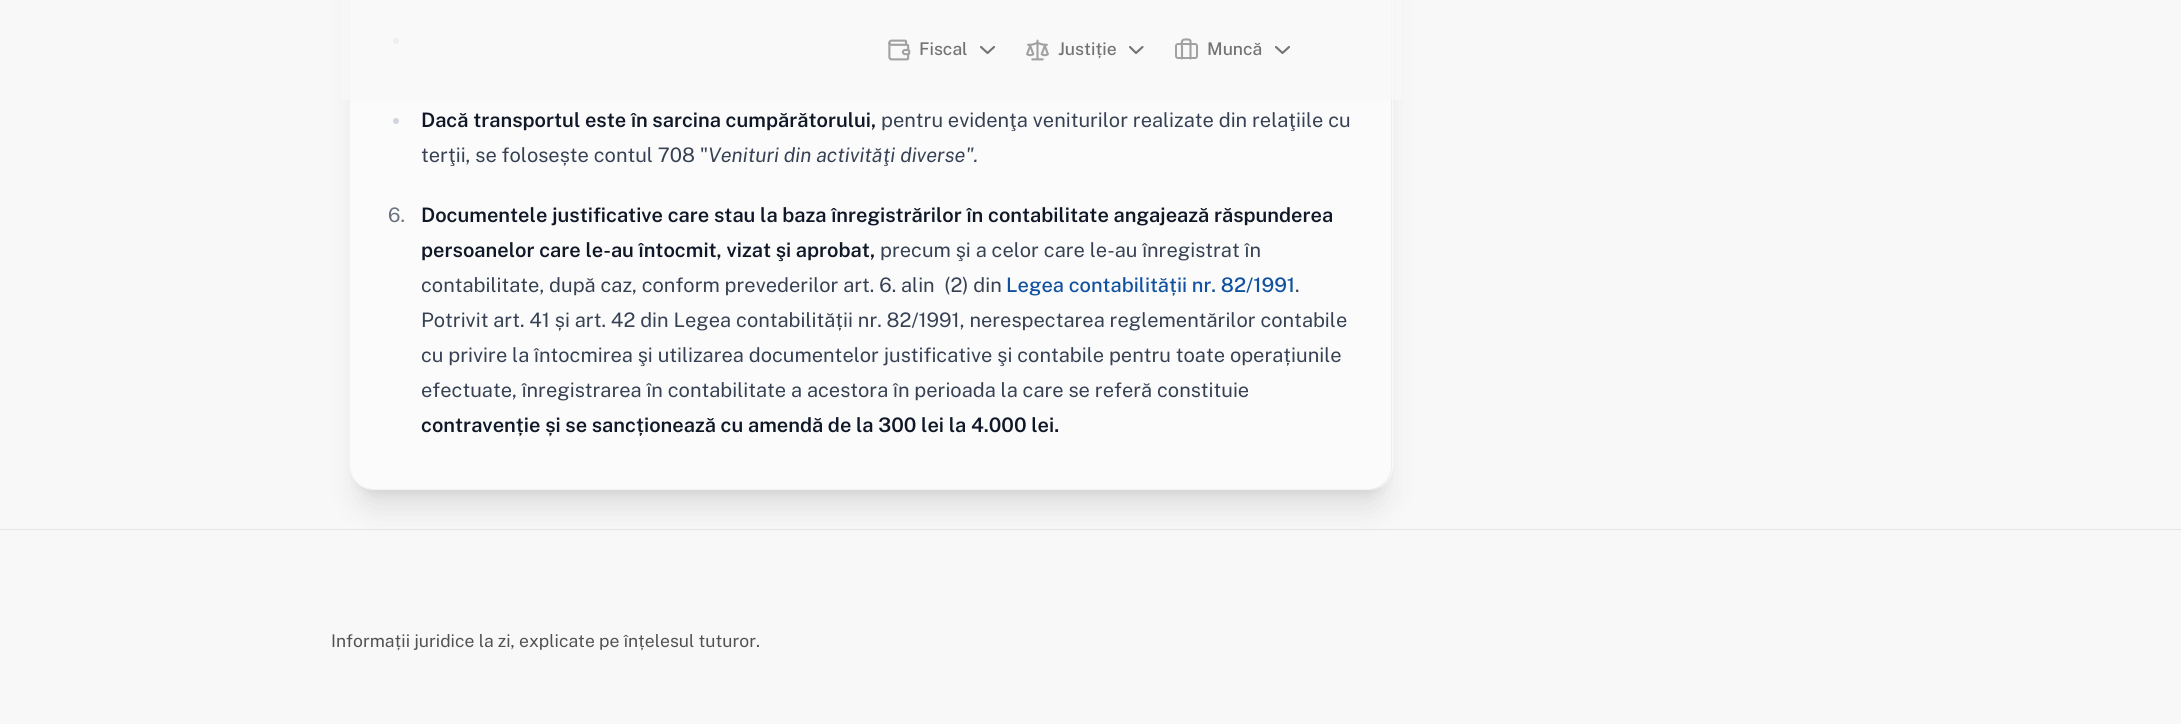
#include <cairo.h>
#include <math.h>
#include <stddef.h>


static void set_color(cairo_t *cr, unsigned color) {
    cairo_set_source_rgb(cr, (color >> 16) / 255.0, (color >> 8 & 255) / 255.0, (color & 255) / 255.0);
}

static void draw_text(cairo_t *cr, double x, double y, const char *s, const char *family, double size, int italic, int bold, unsigned color) {
    cairo_select_font_face(cr, family, italic ? CAIRO_FONT_SLANT_ITALIC : CAIRO_FONT_SLANT_NORMAL,
        bold ? CAIRO_FONT_WEIGHT_BOLD : CAIRO_FONT_WEIGHT_NORMAL);
    cairo_set_font_size(cr, size);
    set_color(cr, color);
    cairo_move_to(cr, x, y);
    cairo_show_text(cr, s);
}

static void fill_rect(cairo_t *cr, double x, double y, double w, double h, unsigned color) {
    set_color(cr, color);
    cairo_rectangle(cr, x, y, w, h);
    cairo_fill(cr);
}

static void rounded_rect(cairo_t *cr, double x, double y, double w, double h, double r) {
    cairo_new_sub_path(cr);
    cairo_arc(cr, x + w - r, y + h - r, r, 0, M_PI / 2);
    cairo_arc(cr, x + r, y + h - r, r, M_PI / 2, M_PI);
    cairo_arc(cr, x + r, y + r, r, M_PI, 1.5 * M_PI);
    cairo_arc(cr, x + w - r, y + r, r, 1.5 * M_PI, 2 * M_PI);
    cairo_close_path(cr);
}

static void draw_shadow(cairo_t *cr, double x, double y, double w, double h, double r, double blur, double alpha) {
    cairo_push_group_with_content(cr, CAIRO_CONTENT_ALPHA);
    cairo_set_operator(cr, CAIRO_OPERATOR_SOURCE);
    for (int i = 15; i >= -15 && fmin(w, h) + blur * i / 3 > 0; i -= 2) {
        double e = blur * i / 6;
        cairo_set_source_rgba(cr, 0, 0, 0, alpha * erfc((i - 1) / 8.5) / 2);
        rounded_rect(cr, x - e, y - e, w + 2 * e, h + 2 * e, fmax(0, fmin(r + e + blur * .6, fmin(w, h) / 2 + e)));
        cairo_fill(cr);
    }
    cairo_pattern_t *soft = cairo_pop_group(cr);
    cairo_mask(cr, soft);
    cairo_pattern_destroy(soft);
}

static void draw_image(cairo_t *cr, const char *path, double x, double y, double w, double h) {
    cairo_surface_t *image = cairo_image_surface_create_from_png(path);
    cairo_save(cr);
    cairo_set_source_surface(cr, image, x, y);
    cairo_rectangle(cr, x, y, w, h);
    cairo_fill(cr);
    cairo_restore(cr);
    cairo_surface_destroy(image);
}

int main(void) {
    cairo_surface_t *surface = cairo_image_surface_create(CAIRO_FORMAT_RGB24, 2181, 724);
    cairo_t *cr = cairo_create(surface);
    cairo_font_options_t *options = cairo_font_options_create();
    cairo_font_options_set_hint_metrics(options, CAIRO_HINT_METRICS_OFF);
    cairo_font_options_set_hint_style(options, CAIRO_HINT_STYLE_NONE);
    cairo_set_font_options(cr, options);
    cairo_set_miter_limit(cr, 4);
    set_color(cr, 0xF8F8F8);
    cairo_paint(cr);
    cairo_save(cr);
    cairo_set_fill_rule(cr, CAIRO_FILL_RULE_EVEN_ODD);
    cairo_new_path(cr);
    cairo_move_to(cr, 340, 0);
    cairo_line_to(cr, 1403, 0);
    cairo_line_to(cr, 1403, 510);
    cairo_line_to(cr, 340, 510);
    cairo_close_path(cr);
    cairo_move_to(cr, 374, -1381);
    cairo_line_to(cr, 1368, -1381);
    cairo_curve_to(cr, 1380.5, -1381, 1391, -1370.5, 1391, -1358);
    cairo_line_to(cr, 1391, 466);
    cairo_curve_to(cr, 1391, 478.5, 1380.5, 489, 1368, 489);
    cairo_line_to(cr, 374, 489);
    cairo_curve_to(cr, 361.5, 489, 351, 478.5, 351, 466);
    cairo_line_to(cr, 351, -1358);
    cairo_curve_to(cr, 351, -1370.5, 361.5, -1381, 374, -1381);
    cairo_close_path(cr);
    cairo_clip(cr);
    set_color(cr, 0x000000);
    draw_shadow(cr, 359, -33, 1025, 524, 15, 6, 0.1);
    cairo_restore(cr);
    fill_rect(cr, 0, 529, 2181, 1, 0xE5E5E5);
    cairo_save(cr);
    cairo_set_fill_rule(cr, CAIRO_FILL_RULE_EVEN_ODD);
    cairo_new_path(cr);
    cairo_move_to(cr, 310, 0);
    cairo_line_to(cr, 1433, 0);
    cairo_line_to(cr, 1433, 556);
    cairo_line_to(cr, 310, 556);
    cairo_close_path(cr);
    cairo_move_to(cr, 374, -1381);
    cairo_line_to(cr, 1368, -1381);
    cairo_curve_to(cr, 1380.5, -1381, 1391, -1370.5, 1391, -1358);
    cairo_line_to(cr, 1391, 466);
    cairo_curve_to(cr, 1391, 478.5, 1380.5, 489, 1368, 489);
    cairo_line_to(cr, 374, 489);
    cairo_curve_to(cr, 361.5, 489, 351, 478.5, 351, 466);
    cairo_line_to(cr, 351, -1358);
    cairo_curve_to(cr, 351, -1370.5, 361.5, -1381, 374, -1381);
    cairo_close_path(cr);
    cairo_clip(cr);
    set_color(cr, 0x000000);
    draw_shadow(cr, 358, -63, 1027, 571, 16, 15.5, 0.1);
    cairo_restore(cr);
    rounded_rect(cr, 350.5, -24.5, 1042, 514, 23.5);
    cairo_set_source_rgba(cr, 1, 1, 1, 0.7);
    cairo_set_line_width(cr, 1);
    cairo_stroke(cr);
    cairo_set_source_rgba(cr, 1, 1, 1, 0.4);
    rounded_rect(cr, 351, -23, 1040, 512, 23);
    cairo_fill(cr);
    set_color(cr, 0xD1D5DC);
    cairo_arc(cr, 396, 41, 3, 0, 2 * M_PI);
    cairo_fill(cr);
    cairo_set_source_rgba(cr, 0.973, 0.973, 0.973, 0.75);
    cairo_rectangle(cr, 341, 0, 1061, 100);
    cairo_fill(cr);
    draw_image(cr, "assets/img1.png", 888, 39, 23, 22);
    draw_text(cr, 919, 55, "Fiscal", "Public Sans Medium", 17.5, 0, 0, 0x737373);
    cairo_new_path(cr);
    cairo_move_to(cr, 981, 47);
    cairo_line_to(cr, 987.5, 53);
    cairo_line_to(cr, 994, 47);
    cairo_set_line_width(cr, 2.1);
    cairo_set_line_cap(cr, CAIRO_LINE_CAP_ROUND);
    cairo_set_line_join(cr, CAIRO_LINE_JOIN_ROUND);
    cairo_stroke(cr);
    draw_image(cr, "assets/img2.png", 1026, 39, 23, 22);
    draw_text(cr, 1058, 55, "Justiție", "Public Sans Medium", 17.5, 0, 0, 0x737373);
    cairo_new_path(cr);
    cairo_move_to(cr, 1130, 47);
    cairo_line_to(cr, 1136, 53);
    cairo_line_to(cr, 1142.5, 47);
    cairo_stroke(cr);
    cairo_new_path(cr);
    cairo_move_to(cr, 1190.5, 58.5);
    cairo_line_to(cr, 1190.5, 41);
    cairo_curve_to(cr, 1190, 39, 1186.5, 39.5, 1185, 39.5);
    cairo_curve_to(cr, 1180.5, 39.5, 1182, 44, 1182, 47);
    cairo_line_to(cr, 1182, 58.5);
    set_color(cr, 0xA1A1A1);
    cairo_stroke(cr);
    rounded_rect(cr, 1176, 44, 21, 14, 2);
    cairo_set_line_width(cr, 2);
    cairo_set_line_cap(cr, CAIRO_LINE_CAP_BUTT);
    cairo_set_line_join(cr, CAIRO_LINE_JOIN_MITER);
    cairo_stroke(cr);
    draw_text(cr, 1207, 55, "Muncă", "Public Sans Medium", 17.5, 0, 0, 0x737373);
    cairo_new_path(cr);
    cairo_move_to(cr, 1276, 47);
    cairo_line_to(cr, 1282.5, 53);
    cairo_line_to(cr, 1289, 47);
    cairo_set_line_width(cr, 2.1);
    cairo_set_line_cap(cr, CAIRO_LINE_CAP_ROUND);
    cairo_set_line_join(cr, CAIRO_LINE_JOIN_ROUND);
    cairo_stroke(cr);
    set_color(cr, 0xD1D5DC);
    cairo_arc(cr, 396, 121, 3, 0, 2 * M_PI);
    cairo_fill(cr);
    draw_text(cr, 421, 127, "Dacă transportul este în sarcina cumpărătorului,", "Public Sans SemiBold", 20, 0, 0, 0x101828);
    draw_text(cr, 881, 127, "pentru evidenţa veniturilor realizate din relaţiile cu", "Public Sans", 20, 0, 0, 0x364153);
    draw_text(cr, 421, 162, "terţii, se folosește contul 708 \"", "Public Sans", 20, 0, 0, 0x364153);
    draw_text(cr, 708, 162, "Venituri din activităţi diverse\".", "Public Sans", 20, 1, 0, 0x364153);
    draw_text(cr, 388, 222, "6.", "Public Sans", 20, 0, 0, 0x6A7282);
    draw_text(cr, 421, 222, "Documentele justificative care stau la baza înregistrărilor în contabilitate angajează răspunderea", "Public Sans SemiBold", 20, 0, 0, 0x101828);
    draw_text(cr, 421, 257, "persoanelor care le-au întocmit, vizat şi aprobat,", "Public Sans SemiBold", 20, 0, 0, 0x101828);
    draw_text(cr, 880, 257, "precum şi a celor care le-au înregistrat în", "Public Sans", 20, 0, 0, 0x364153);
    draw_text(cr, 421, 292, "contabilitate, după caz, conform prevederilor art. 6. alin  (2) din", "Public Sans", 20, 0, 0, 0x364153);
    draw_text(cr, 1006, 292, "Legea contabilității nr. 82/1991", "Public Sans Medium", 20, 0, 0, 0x1051A0);
    draw_text(cr, 1295, 292, ".", "Public Sans", 20, 0, 0, 0x364153);
    draw_text(cr, 421, 327, "Potrivit art. 41 și art. 42 din Legea contabilității nr. 82/1991, nerespectarea reglementărilor contabile", "Public Sans", 20, 0, 0, 0x364153);
    draw_text(cr, 421, 362, "cu privire la întocmirea şi utilizarea documentelor justificative şi contabile pentru toate operațiunile", "Public Sans", 20, 0, 0, 0x364153);
    draw_text(cr, 421, 397, "efectuate, înregistrarea în contabilitate a acestora în perioada la care se referă constituie", "Public Sans", 20, 0, 0, 0x364153);
    draw_text(cr, 421, 432, "contravenție și se sancționează cu amendă de la 300 lei la 4.000 lei.", "Public Sans SemiBold", 20, 0, 0, 0x101828);
    draw_text(cr, 331, 647, "Informații juridice la zi, explicate pe înțelesul tuturor.", "Public Sans", 17.5, 0, 0, 0x525252);
    cairo_surface_write_to_png(surface, "output.png");
    cairo_font_options_destroy(options);
    cairo_destroy(cr);
    cairo_surface_destroy(surface);
    return 0;
}
